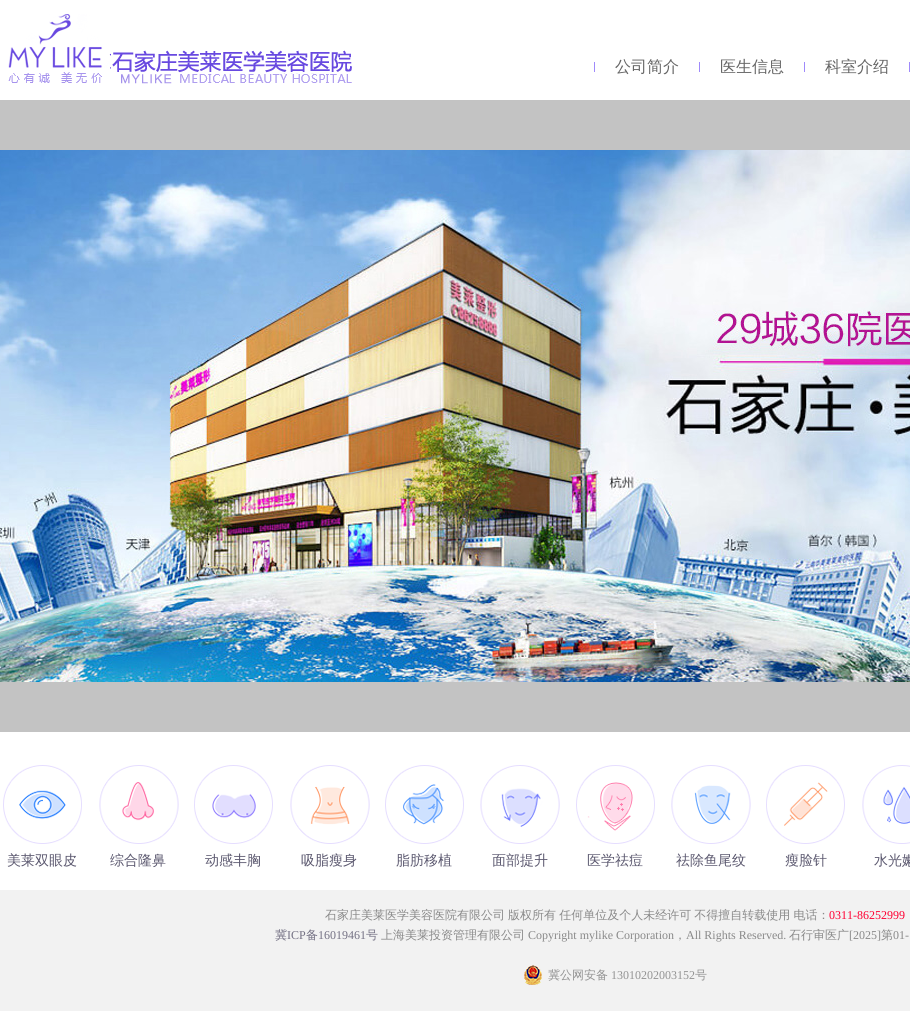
#include <cairo.h>
#include <math.h>
#include <stddef.h>


static void set_color(cairo_t *cr, unsigned color) {
    cairo_set_source_rgb(cr, (color >> 16) / 255.0, (color >> 8 & 255) / 255.0, (color & 255) / 255.0);
}

static void draw_text(cairo_t *cr, double x, double y, const char *s, const char *family, double size, int italic, int bold, unsigned color) {
    cairo_select_font_face(cr, family, italic ? CAIRO_FONT_SLANT_ITALIC : CAIRO_FONT_SLANT_NORMAL,
        bold ? CAIRO_FONT_WEIGHT_BOLD : CAIRO_FONT_WEIGHT_NORMAL);
    cairo_set_font_size(cr, size);
    set_color(cr, color);
    cairo_move_to(cr, x, y);
    cairo_show_text(cr, s);
}

static void draw_spaced(cairo_t *cr, double x, double y, const char *s, double letter, double word) {
    cairo_move_to(cr, x, y);
    while (*s) {
        char ch[5] = {0};
        int n = 0;
        do ch[n++] = *s++; while ((*s & 0xC0) == 0x80);
        cairo_show_text(cr, ch);
        cairo_rel_move_to(cr, letter + word * (*ch == ' '), 0);
    }
}

static void fill_rect(cairo_t *cr, double x, double y, double w, double h, unsigned color) {
    set_color(cr, color);
    cairo_rectangle(cr, x, y, w, h);
    cairo_fill(cr);
}

static void draw_image(cairo_t *cr, const char *path, double x, double y, double w, double h) {
    cairo_surface_t *image = cairo_image_surface_create_from_png(path);
    cairo_save(cr);
    cairo_set_source_surface(cr, image, x, y);
    cairo_rectangle(cr, x, y, w, h);
    cairo_fill(cr);
    cairo_restore(cr);
    cairo_surface_destroy(image);
}

int main(void) {
    cairo_surface_t *surface = cairo_image_surface_create(CAIRO_FORMAT_RGB24, 910, 1011);
    cairo_t *cr = cairo_create(surface);
    cairo_font_options_t *options = cairo_font_options_create();
    cairo_font_options_set_hint_metrics(options, CAIRO_HINT_METRICS_OFF);
    cairo_font_options_set_hint_style(options, CAIRO_HINT_STYLE_NONE);
    cairo_set_font_options(cr, options);
    cairo_set_miter_limit(cr, 4);
    set_color(cr, 0xFFFFFF);
    cairo_paint(cr);
    draw_image(cr, "assets/img1.png", 8, 14, 344, 70);
    fill_rect(cr, 594, 62, 1, 10, 0x9F8AFB);
    draw_text(cr, 615, 72, "公司简介", "WenQuanYi Zen Hei Medium", 16, 0, 0, 0x656565);
    fill_rect(cr, 699, 62, 1, 10, 0x9F8AFB);
    draw_text(cr, 720, 72, "医生信息", "WenQuanYi Zen Hei Medium", 16, 0, 0, 0x656565);
    fill_rect(cr, 804, 62, 1, 10, 0x9F8AFB);
    draw_text(cr, 825, 72, "科室介绍", "WenQuanYi Zen Hei Medium", 16, 0, 0, 0x656565);
    fill_rect(cr, 909, 62, 1, 10, 0x9F8AFB);
    fill_rect(cr, 0, 100, 910, 632, 0xC3C3C3);
    draw_image(cr, "assets/img2.png", 0, 150, 910, 532);
    draw_image(cr, "assets/img3.png", 3, 765, 79, 79);
    draw_text(cr, 7, 865, "美莱双眼皮", "WenQuanYi Zen Hei Medium", 14, 0, 0, 0x5B586F);
    draw_image(cr, "assets/img4.png", 99, 765, 80, 79);
    draw_text(cr, 110, 865, "综合隆鼻", "WenQuanYi Zen Hei Medium", 14, 0, 0, 0x5B586F);
    draw_image(cr, "assets/img5.png", 194, 765, 79, 79);
    draw_text(cr, 205, 865, "动感丰胸", "WenQuanYi Zen Hei Medium", 14, 0, 0, 0x5B586F);
    draw_image(cr, "assets/img6.png", 290, 765, 80, 79);
    draw_text(cr, 301, 865, "吸脂瘦身", "WenQuanYi Zen Hei Medium", 14, 0, 0, 0x5B586F);
    draw_image(cr, "assets/img7.png", 385, 765, 79, 79);
    draw_text(cr, 396, 865, "脂肪移植", "WenQuanYi Zen Hei Medium", 14, 0, 0, 0x5B586F);
    draw_image(cr, "assets/img8.png", 480, 765, 80, 79);
    draw_text(cr, 492, 865, "面部提升", "WenQuanYi Zen Hei Medium", 14, 0, 0, 0x5B586F);
    draw_image(cr, "assets/img9.png", 576, 765, 79, 79);
    draw_text(cr, 587, 865, "医学祛痘", "WenQuanYi Zen Hei Medium", 14, 0, 0, 0x5B586F);
    draw_image(cr, "assets/img10.png", 671, 765, 80, 79);
    draw_text(cr, 676, 865, "祛除鱼尾纹", "WenQuanYi Zen Hei Medium", 14, 0, 0, 0x5B586F);
    draw_image(cr, "assets/img11.png", 766, 765, 79, 79);
    draw_text(cr, 785, 865, "瘦脸针", "WenQuanYi Zen Hei Medium", 14, 0, 0, 0x5B586F);
    draw_image(cr, "assets/img12.png", 862, 765, 48, 79);
    draw_text(cr, 874, 865, "水光嫩", "WenQuanYi Zen Hei Medium", 14, 0, 0, 0x5B586F);
    fill_rect(cr, 0, 890, 910, 121, 0xF2F2F2);
    cairo_set_font_size(cr, 12);
    set_color(cr, 0x898989);
    draw_spaced(cr, 325, 919, "石家庄美莱医学美容医院有限公司 版权所有 任何单位及个人未经许可 不得擅自转载使用 电话：", 0, -0.5);
    draw_text(cr, 829, 919, "0311-86252999", "Liberation Serif", 12, 0, 0, 0xFF0033);
    draw_text(cr, 275, 939, "冀", "WenQuanYi Zen Hei Medium", 12, 0, 0, 0x747184);
    draw_text(cr, 287, 939, "ICP", "Liberation Serif", 12, 0, 0, 0x747184);
    draw_text(cr, 306, 939, "备", "WenQuanYi Zen Hei Medium", 12, 0, 0, 0x747184);
    draw_text(cr, 318, 939, "16019461", "Liberation Serif", 12, 0, 0, 0x747184);
    draw_text(cr, 366, 939, "号", "WenQuanYi Zen Hei Medium", 12, 0, 0, 0x747184);
    draw_text(cr, 381, 939, "上海美莱投资管理有限公司", "WenQuanYi Zen Hei Medium", 12, 0, 0, 0x898989);
    draw_text(cr, 528, 939, "Copyright mylike Corporation", "Liberation Serif", 12, 0, 0, 0x898989);
    draw_text(cr, 674, 939, "，", "WenQuanYi Zen Hei Medium", 12, 0, 0, 0x898989);
    draw_text(cr, 686, 939, "All Rights Reserved.", "Liberation Serif", 12, 0, 0, 0x898989);
    draw_text(cr, 789, 939, "石行审医广", "WenQuanYi Zen Hei Medium", 12, 0, 0, 0x898989);
    draw_text(cr, 849, 939, "[2025]", "Liberation Serif", 12, 0, 0, 0x898989);
    draw_text(cr, 881, 939, "第", "WenQuanYi Zen Hei Medium", 12, 0, 0, 0x898989);
    draw_text(cr, 893, 939, "01-", "Liberation Serif", 12, 0, 0, 0x898989);
    draw_image(cr, "assets/img13.png", 524, 965, 18, 20);
    draw_text(cr, 548, 979, "冀公网安备", "WenQuanYi Zen Hei Medium", 12, 0, 0, 0x939393);
    draw_text(cr, 611, 979, "13010202003152", "Liberation Serif", 12, 0, 0, 0x939393);
    draw_text(cr, 695, 979, "号", "WenQuanYi Zen Hei Medium", 12, 0, 0, 0x939393);
    cairo_surface_write_to_png(surface, "output.png");
    cairo_font_options_destroy(options);
    cairo_destroy(cr);
    cairo_surface_destroy(surface);
    return 0;
}
